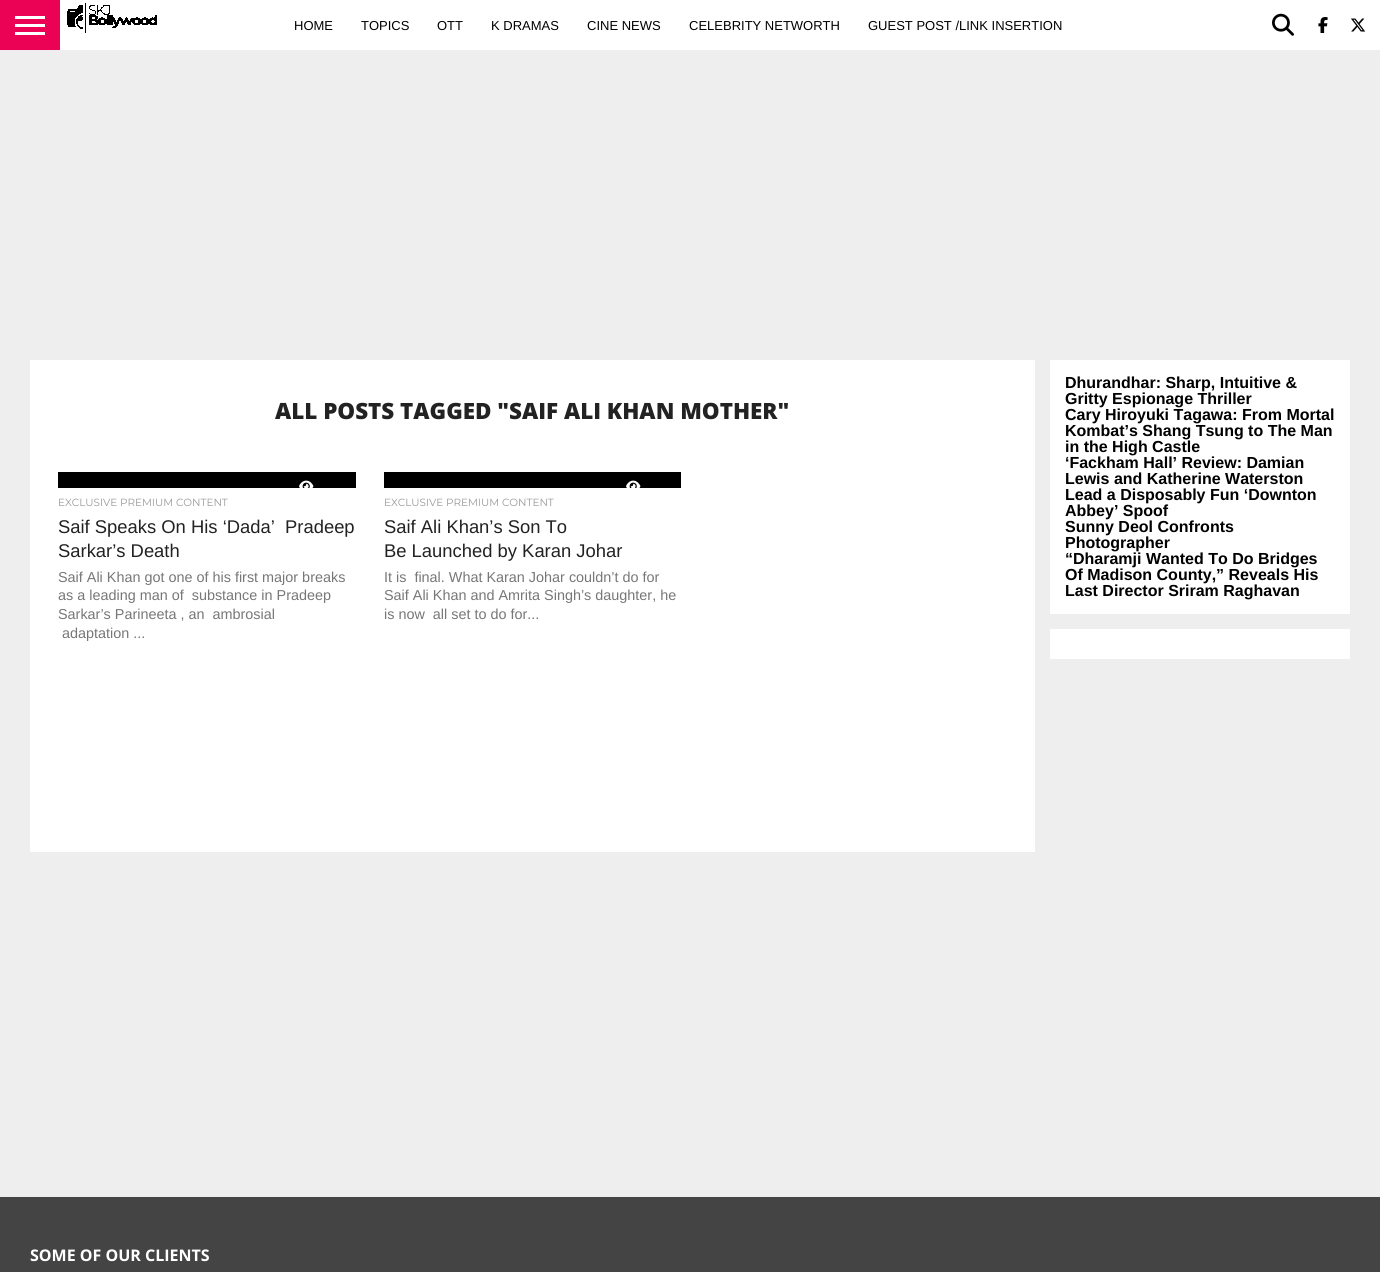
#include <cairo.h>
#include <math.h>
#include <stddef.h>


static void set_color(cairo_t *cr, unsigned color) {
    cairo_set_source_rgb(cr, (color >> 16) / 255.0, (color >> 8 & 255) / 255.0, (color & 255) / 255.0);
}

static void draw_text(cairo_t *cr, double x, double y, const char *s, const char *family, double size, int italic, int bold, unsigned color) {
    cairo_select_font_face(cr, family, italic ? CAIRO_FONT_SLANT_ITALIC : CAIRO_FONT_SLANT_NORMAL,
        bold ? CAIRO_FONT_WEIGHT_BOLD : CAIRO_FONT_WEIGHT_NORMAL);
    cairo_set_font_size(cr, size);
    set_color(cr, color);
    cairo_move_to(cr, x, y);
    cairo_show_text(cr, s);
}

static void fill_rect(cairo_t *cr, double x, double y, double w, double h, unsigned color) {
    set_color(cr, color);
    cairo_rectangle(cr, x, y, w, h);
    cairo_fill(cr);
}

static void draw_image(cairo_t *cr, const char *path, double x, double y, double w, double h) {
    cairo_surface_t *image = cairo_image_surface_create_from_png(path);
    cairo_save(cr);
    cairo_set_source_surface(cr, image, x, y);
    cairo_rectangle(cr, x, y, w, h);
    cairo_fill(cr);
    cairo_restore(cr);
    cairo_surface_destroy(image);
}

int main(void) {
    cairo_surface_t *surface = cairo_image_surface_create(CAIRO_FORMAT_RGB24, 1380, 1272);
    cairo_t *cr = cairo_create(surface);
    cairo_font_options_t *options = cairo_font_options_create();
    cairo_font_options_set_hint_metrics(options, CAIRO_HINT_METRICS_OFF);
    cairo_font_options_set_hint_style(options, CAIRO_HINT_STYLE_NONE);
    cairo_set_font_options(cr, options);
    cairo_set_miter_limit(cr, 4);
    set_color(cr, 0xEEEEEE);
    cairo_paint(cr);
    fill_rect(cr, 60, 0, 1320, 50, 0xFFFFFF);
    fill_rect(cr, 0, 0, 60, 50, 0xEB0254);
    fill_rect(cr, 15, 16, 30, 3, 0xFFFFFF);
    fill_rect(cr, 15, 24, 30, 3, 0xFFFFFF);
    fill_rect(cr, 15, 32, 30, 3, 0xFFFFFF);
    draw_image(cr, "assets/img1.png", 67, 3, 90, 30);
    draw_text(cr, 294, 30, "HOME", "Liberation Sans", 13, 0, 0, 0x000000);
    draw_text(cr, 361, 30, "TOPICS", "Liberation Sans", 13, 0, 0, 0x000000);
    draw_text(cr, 437, 30, "OTT", "Liberation Sans", 13, 0, 0, 0x000000);
    draw_text(cr, 491, 30, "K DRAMAS", "Liberation Sans", 13, 0, 0, 0x000000);
    draw_text(cr, 587, 30, "CINE NEWS", "Liberation Sans", 13, 0, 0, 0x000000);
    draw_text(cr, 689, 30, "CELEBRITY NETWORTH", "Liberation Sans", 13, 0, 0, 0x000000);
    draw_text(cr, 868, 30, "GUEST POST /LINK INSERTION", "Liberation Sans", 13, 0, 0, 0x000000);
    draw_image(cr, "assets/img2.png", 1272, 13, 22, 23);
    draw_image(cr, "assets/img3.png", 1318, 17, 10, 16);
    draw_image(cr, "assets/img4.png", 1351, 18, 15, 14);
    fill_rect(cr, 30, 360, 1005, 492, 0xFFFFFF);
    draw_text(cr, 275, 419, "ALL POSTS TAGGED \"SAIF ALI KHAN MOTHER\"", "Open Sans ExtraBold", 22.4, 0, 0, 0x222222);
    fill_rect(cr, 58, 472, 298, 16, 0x000000);
    draw_image(cr, "assets/img5.png", 299, 480, 15, 8);
    draw_text(cr, 58, 506, "EXCLUSIVE PREMIUM CONTENT", "Montserrat", 10.4, 0, 0, 0x999999);
    draw_text(cr, 58, 533, "Saif Speaks On His ‘Dada’  Pradeep", "Liberation Sans", 18.4, 0, 0, 0x222222);
    draw_text(cr, 58, 557, "Sarkar’s Death", "Liberation Sans", 18.4, 0, 0, 0x222222);
    draw_text(cr, 58, 582, "Saif Ali Khan got one of his first major breaks", "Liberation Sans", 14.4, 0, 0, 0x777777);
    draw_text(cr, 58, 600, "as a leading man of  substance in Pradeep", "Liberation Sans", 14.4, 0, 0, 0x777777);
    draw_text(cr, 58, 619, "Sarkar’s Parineeta , an  ambrosial", "Liberation Sans", 14.4, 0, 0, 0x777777);
    draw_text(cr, 62, 638, "adaptation ...", "Liberation Sans", 14.4, 0, 0, 0x777777);
    fill_rect(cr, 384, 472, 297, 16, 0x000000);
    draw_image(cr, "assets/img5.png", 626, 480, 15, 8);
    draw_text(cr, 384, 506, "EXCLUSIVE PREMIUM CONTENT", "Montserrat", 10.4, 0, 0, 0x999999);
    draw_text(cr, 384, 533, "Saif Ali Khan’s Son To", "Liberation Sans", 18.4, 0, 0, 0x222222);
    draw_text(cr, 384, 557, "Be Launched by Karan Johar", "Liberation Sans", 18.4, 0, 0, 0x222222);
    draw_text(cr, 384, 582, "It is  final. What Karan Johar couldn’t do for", "Liberation Sans", 14.4, 0, 0, 0x777777);
    draw_text(cr, 384, 600, "Saif Ali Khan and Amrita Singh’s daughter, he", "Liberation Sans", 14.4, 0, 0, 0x777777);
    draw_text(cr, 384, 619, "is now  all set to do for...", "Liberation Sans", 14.4, 0, 0, 0x777777);
    fill_rect(cr, 1050, 360, 300, 254, 0xFFFFFF);
    draw_text(cr, 1065, 388, "Dhurandhar: Sharp, Intuitive &", "Liberation Sans", 16, 0, 1, 0x000000);
    draw_text(cr, 1065, 404, "Gritty Espionage Thriller", "Liberation Sans", 16, 0, 1, 0x000000);
    draw_text(cr, 1065, 420, "Cary Hiroyuki Tagawa: From Mortal", "Liberation Sans", 16, 0, 1, 0x000000);
    draw_text(cr, 1065, 436, "Kombat’s Shang Tsung to The Man", "Liberation Sans", 16, 0, 1, 0x000000);
    draw_text(cr, 1065, 452, "in the High Castle", "Liberation Sans", 16, 0, 1, 0x000000);
    draw_text(cr, 1065, 468, "‘Fackham Hall’ Review: Damian", "Liberation Sans", 16, 0, 1, 0x000000);
    draw_text(cr, 1065, 484, "Lewis and Katherine Waterston", "Liberation Sans", 16, 0, 1, 0x000000);
    draw_text(cr, 1065, 500, "Lead a Disposably Fun ‘Downton", "Liberation Sans", 16, 0, 1, 0x000000);
    draw_text(cr, 1065, 516, "Abbey’ Spoof", "Liberation Sans", 16, 0, 1, 0x000000);
    draw_text(cr, 1065, 532, "Sunny Deol Confronts", "Liberation Sans", 16, 0, 1, 0x000000);
    draw_text(cr, 1065, 548, "Photographer", "Liberation Sans", 16, 0, 1, 0x000000);
    draw_text(cr, 1065, 564, "“Dharamji Wanted To Do Bridges", "Liberation Sans", 16, 0, 1, 0x000000);
    draw_text(cr, 1065, 580, "Of Madison County,” Reveals His", "Liberation Sans", 16, 0, 1, 0x000000);
    draw_text(cr, 1065, 596, "Last Director Sriram Raghavan", "Liberation Sans", 16, 0, 1, 0x000000);
    fill_rect(cr, 1050, 629, 300, 30, 0xFFFFFF);
    fill_rect(cr, 0, 1197, 1380, 75, 0x444444);
    draw_text(cr, 30, 1261, "SOME OF OUR CLIENTS", "Open Sans", 16, 0, 1, 0xFFFFFF);
    cairo_surface_write_to_png(surface, "output.png");
    cairo_font_options_destroy(options);
    cairo_destroy(cr);
    cairo_surface_destroy(surface);
    return 0;
}
